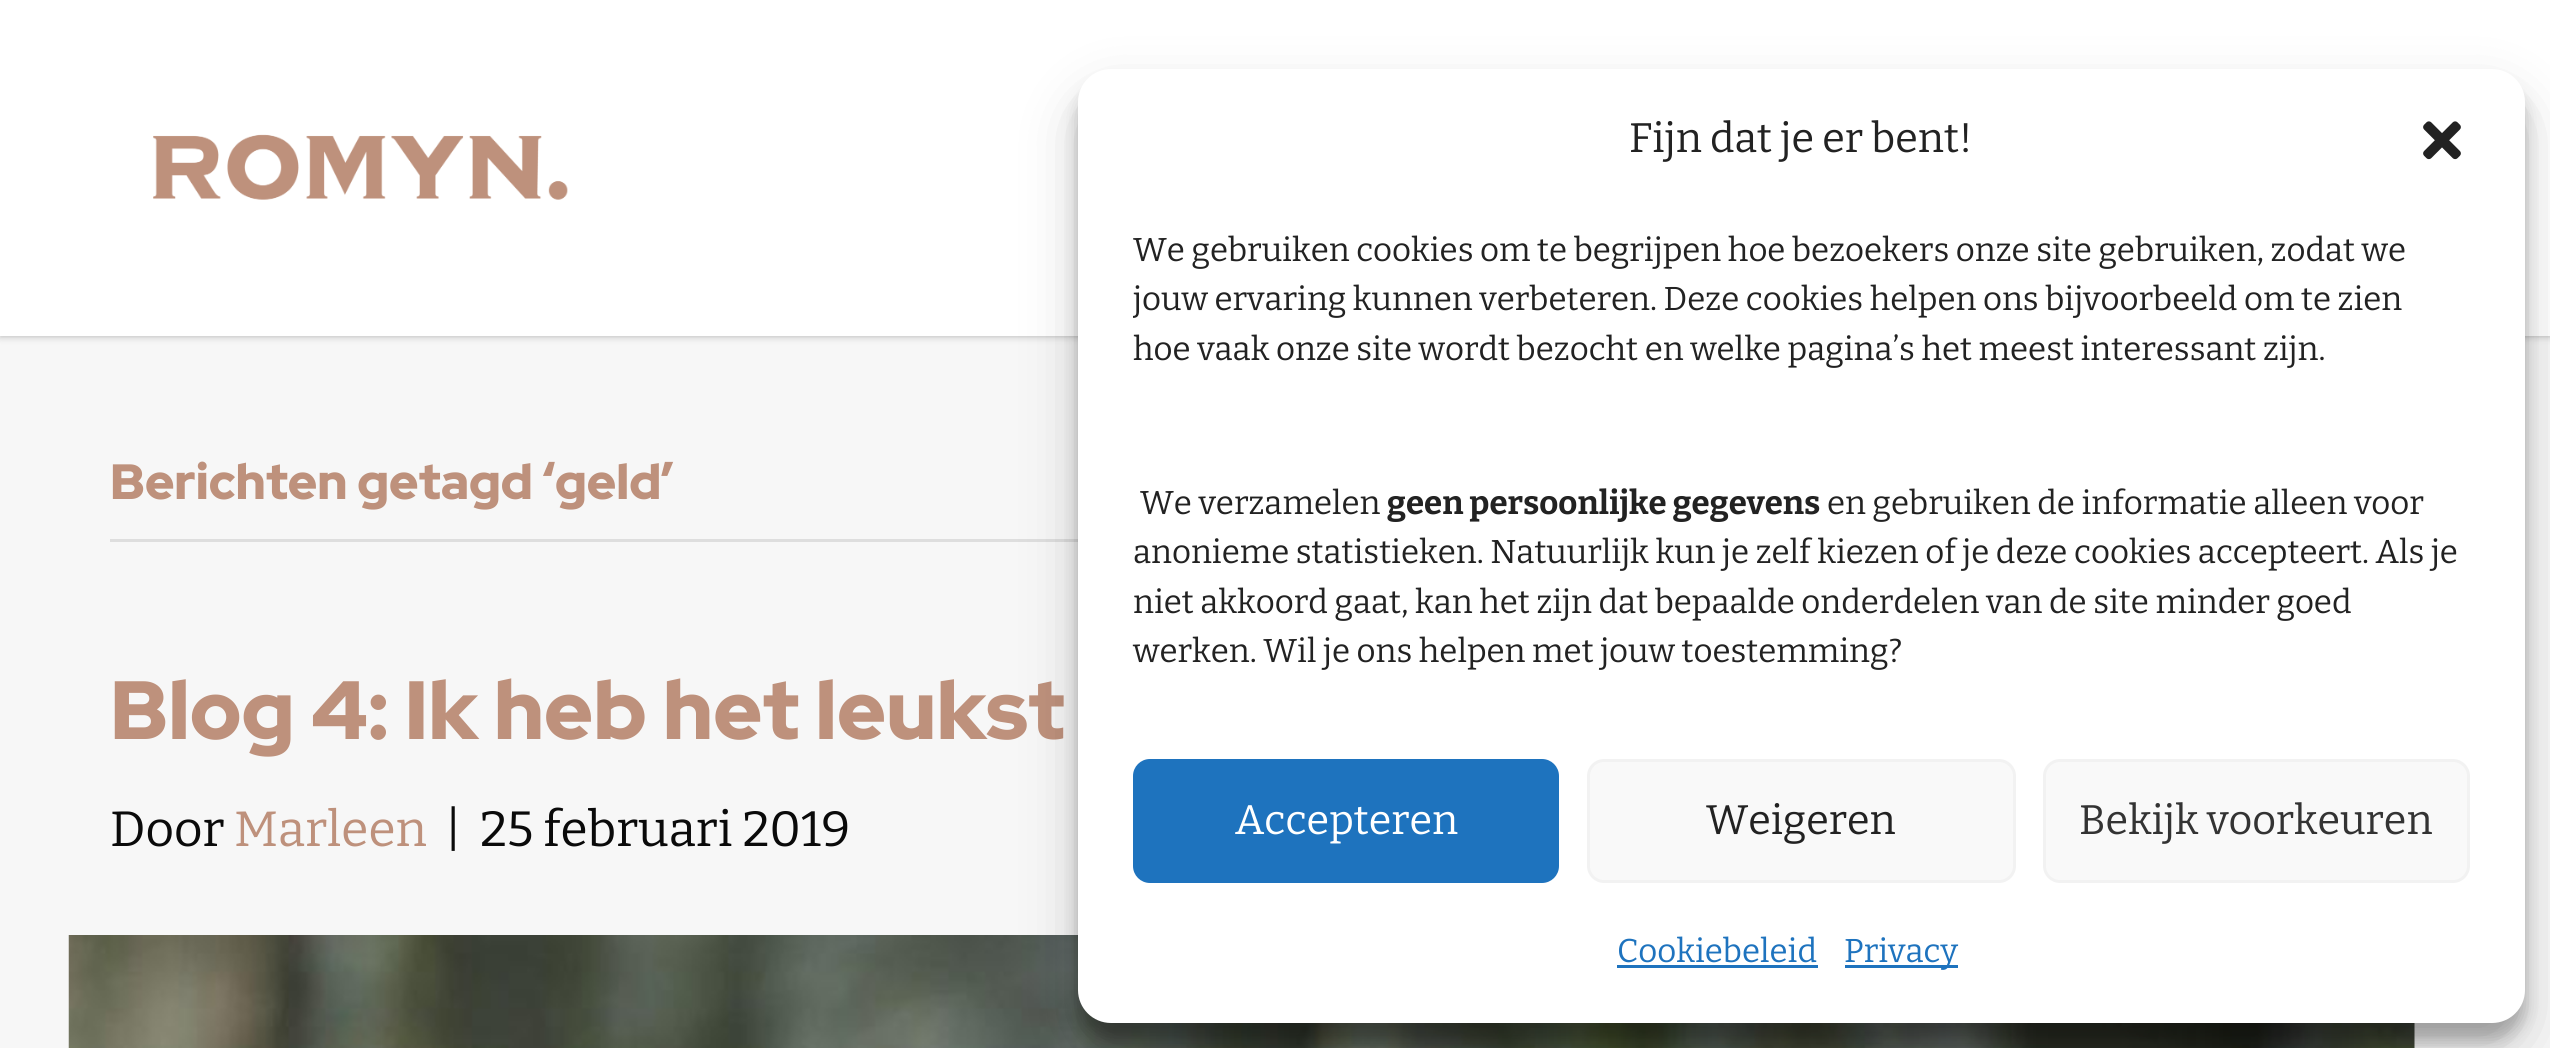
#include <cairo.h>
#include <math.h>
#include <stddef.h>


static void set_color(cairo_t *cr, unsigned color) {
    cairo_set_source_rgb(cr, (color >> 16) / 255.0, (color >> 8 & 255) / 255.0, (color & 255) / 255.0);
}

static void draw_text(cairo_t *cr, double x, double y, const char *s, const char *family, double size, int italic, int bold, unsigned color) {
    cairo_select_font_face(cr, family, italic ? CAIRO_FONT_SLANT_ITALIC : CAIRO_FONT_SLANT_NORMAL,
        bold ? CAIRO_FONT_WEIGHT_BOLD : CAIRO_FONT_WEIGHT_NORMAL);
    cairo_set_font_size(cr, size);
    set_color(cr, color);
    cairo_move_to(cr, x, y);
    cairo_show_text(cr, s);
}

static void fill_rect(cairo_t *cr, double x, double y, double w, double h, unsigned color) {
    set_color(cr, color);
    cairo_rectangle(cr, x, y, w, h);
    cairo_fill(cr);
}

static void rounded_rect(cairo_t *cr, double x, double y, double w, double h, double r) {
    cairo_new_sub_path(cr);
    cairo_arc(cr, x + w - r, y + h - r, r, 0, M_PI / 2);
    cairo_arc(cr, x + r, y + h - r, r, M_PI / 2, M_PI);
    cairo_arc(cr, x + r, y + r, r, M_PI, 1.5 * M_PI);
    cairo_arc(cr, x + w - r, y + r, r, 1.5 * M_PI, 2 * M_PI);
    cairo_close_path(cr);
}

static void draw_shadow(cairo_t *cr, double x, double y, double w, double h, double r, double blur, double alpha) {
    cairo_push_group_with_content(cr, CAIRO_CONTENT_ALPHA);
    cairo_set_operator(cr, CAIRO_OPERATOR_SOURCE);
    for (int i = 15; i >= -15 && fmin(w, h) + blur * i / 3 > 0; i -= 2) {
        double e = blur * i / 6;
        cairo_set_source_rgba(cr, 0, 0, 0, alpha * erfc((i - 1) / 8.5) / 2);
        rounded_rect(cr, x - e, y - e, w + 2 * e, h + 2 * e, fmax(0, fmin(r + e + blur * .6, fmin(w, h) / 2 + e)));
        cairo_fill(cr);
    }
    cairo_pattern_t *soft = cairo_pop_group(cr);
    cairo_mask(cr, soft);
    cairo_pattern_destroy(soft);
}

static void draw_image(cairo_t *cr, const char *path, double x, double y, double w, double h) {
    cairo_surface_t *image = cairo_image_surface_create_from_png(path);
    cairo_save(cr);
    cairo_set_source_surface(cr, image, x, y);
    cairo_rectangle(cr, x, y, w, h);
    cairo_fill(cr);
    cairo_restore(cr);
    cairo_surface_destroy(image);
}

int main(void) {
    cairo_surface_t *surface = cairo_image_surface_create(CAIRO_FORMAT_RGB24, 2550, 1048);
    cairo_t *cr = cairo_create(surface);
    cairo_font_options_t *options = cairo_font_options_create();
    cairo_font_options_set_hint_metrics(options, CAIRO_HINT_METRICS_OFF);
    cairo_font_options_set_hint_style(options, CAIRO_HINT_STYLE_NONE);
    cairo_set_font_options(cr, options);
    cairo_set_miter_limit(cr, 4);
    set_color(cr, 0xF7F7F7);
    cairo_paint(cr);
    set_color(cr, 0x000000);
    draw_shadow(cr, 0, 0, 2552, 336, 0, 4, 0.29);
    fill_rect(cr, 0, 0, 2550, 336, 0xFFFFFF);
    draw_image(cr, "assets/img1.png", 153, 134, 415, 66);
    fill_rect(cr, 110, 539, 968, 3, 0xDEDEDE);
    draw_text(cr, 110, 499, "Berichten getagd ‘geld’", "Red Hat Display Black", 49.5, 0, 0, 0xBE917C);
    draw_text(cr, 110, 739, "Blog 4: Ik heb het leukst", "Red Hat Display Black", 82.5, 0, 0, 0xBE917C);
    draw_text(cr, 110, 846, "Door", "Bitter", 49.5, 0, 0, 0x0A0A0A);
    draw_text(cr, 234, 846, "Marleen", "Bitter", 49.5, 0, 0, 0xBE917C);
    draw_text(cr, 445, 846, "|", "Bitter", 49.5, 0, 0, 0x0A0A0A);
    draw_text(cr, 480, 846, "25 februari 2019", "Bitter", 49.5, 0, 0, 0x0A0A0A);
    draw_image(cr, "assets/img2.png", 68, 935, 2347, 113);
    set_color(cr, 0x000000);
    draw_shadow(cr, 1078, 85, 1447, 955, 33, 8, 0.23);
    draw_shadow(cr, 1078, 96, 1447, 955, 33, 27.5, 0.19);
    set_color(cr, 0xFFFFFF);
    rounded_rect(cr, 1078, 69, 1447, 954, 33);
    cairo_fill(cr);
    draw_text(cr, 1629, 152, "Fijn dat je er bent!", "Bitter", 41.25, 0, 0, 0x222222);
    draw_image(cr, "assets/img3.png", 2423, 121, 38, 39);
    draw_text(cr, 1133, 261, "We gebruiken cookies om te begrijpen hoe bezoekers onze site gebruiken, zodat we", "Bitter", 33, 0, 0, 0x222222);
    cairo_save(cr);
    cairo_rectangle(cr, 1133, 226, 1337, 478);
    cairo_clip(cr);
    draw_text(cr, 1133, 310, "jouw ervaring kunnen verbeteren. Deze cookies helpen ons bijvoorbeeld om te zien", "Bitter", 33, 0, 0, 0x222222);
    cairo_restore(cr);
    draw_text(cr, 1133, 360, "hoe vaak onze site wordt bezocht en welke pagina’s het meest interessant zijn.", "Bitter", 33, 0, 0, 0x222222);
    draw_text(cr, 1140, 514, "We verzamelen", "Bitter", 33, 0, 0, 0x222222);
    draw_text(cr, 1387, 514, "geen persoonlijke gegevens", "Bitter", 33, 0, 1, 0x222222);
    draw_text(cr, 1827, 514, "en gebruiken de informatie alleen voor", "Bitter", 33, 0, 0, 0x222222);
    draw_text(cr, 1133, 563, "anonieme statistieken. Natuurlijk kun je zelf kiezen of je deze cookies accepteert. Als je", "Bitter", 33, 0, 0, 0x222222);
    draw_text(cr, 1133, 613, "niet akkoord gaat, kan het zijn dat bepaalde onderdelen van de site minder goed", "Bitter", 33, 0, 0, 0x222222);
    draw_text(cr, 1133, 662, "werken. Wil je ons helpen met jouw toestemming?", "Bitter", 33, 0, 0, 0x222222);
    set_color(cr, 0x1E73BE);
    rounded_rect(cr, 1134.5, 760.5, 423, 121, 15.5);
    cairo_fill_preserve(cr);
    cairo_set_line_width(cr, 3);
    cairo_stroke(cr);
    draw_text(cr, 1235, 834, "Accepteren", "Bitter", 41.25, 0, 0, 0xFFFFFF);
    set_color(cr, 0xF9F9F9);
    rounded_rect(cr, 1588.5, 760.5, 426, 121, 15.5);
    cairo_fill_preserve(cr);
    set_color(cr, 0xF2F2F2);
    cairo_stroke(cr);
    draw_text(cr, 1706, 834, "Weigeren", "Bitter", 41.25, 0, 0, 0x222222);
    set_color(cr, 0xF9F9F9);
    rounded_rect(cr, 2044.5, 760.5, 424, 121, 15.5);
    cairo_fill_preserve(cr);
    set_color(cr, 0xF2F2F2);
    cairo_stroke(cr);
    draw_text(cr, 2079, 834, "Bekijk voorkeuren", "Bitter", 41.25, 0, 0, 0x333333);
    draw_text(cr, 1617, 962, "Cookiebeleid", "Bitter", 33, 0, 0, 0x1E73BE);
    fill_rect(cr, 1617, 965, 201, 3, 0x1E73BE);
    fill_rect(cr, 1845, 965, 113, 3, 0x1E73BE);
    draw_text(cr, 1844, 962, "Privacy", "Bitter", 33, 0, 0, 0x1E73BE);
    cairo_surface_write_to_png(surface, "output.png");
    cairo_font_options_destroy(options);
    cairo_destroy(cr);
    cairo_surface_destroy(surface);
    return 0;
}
